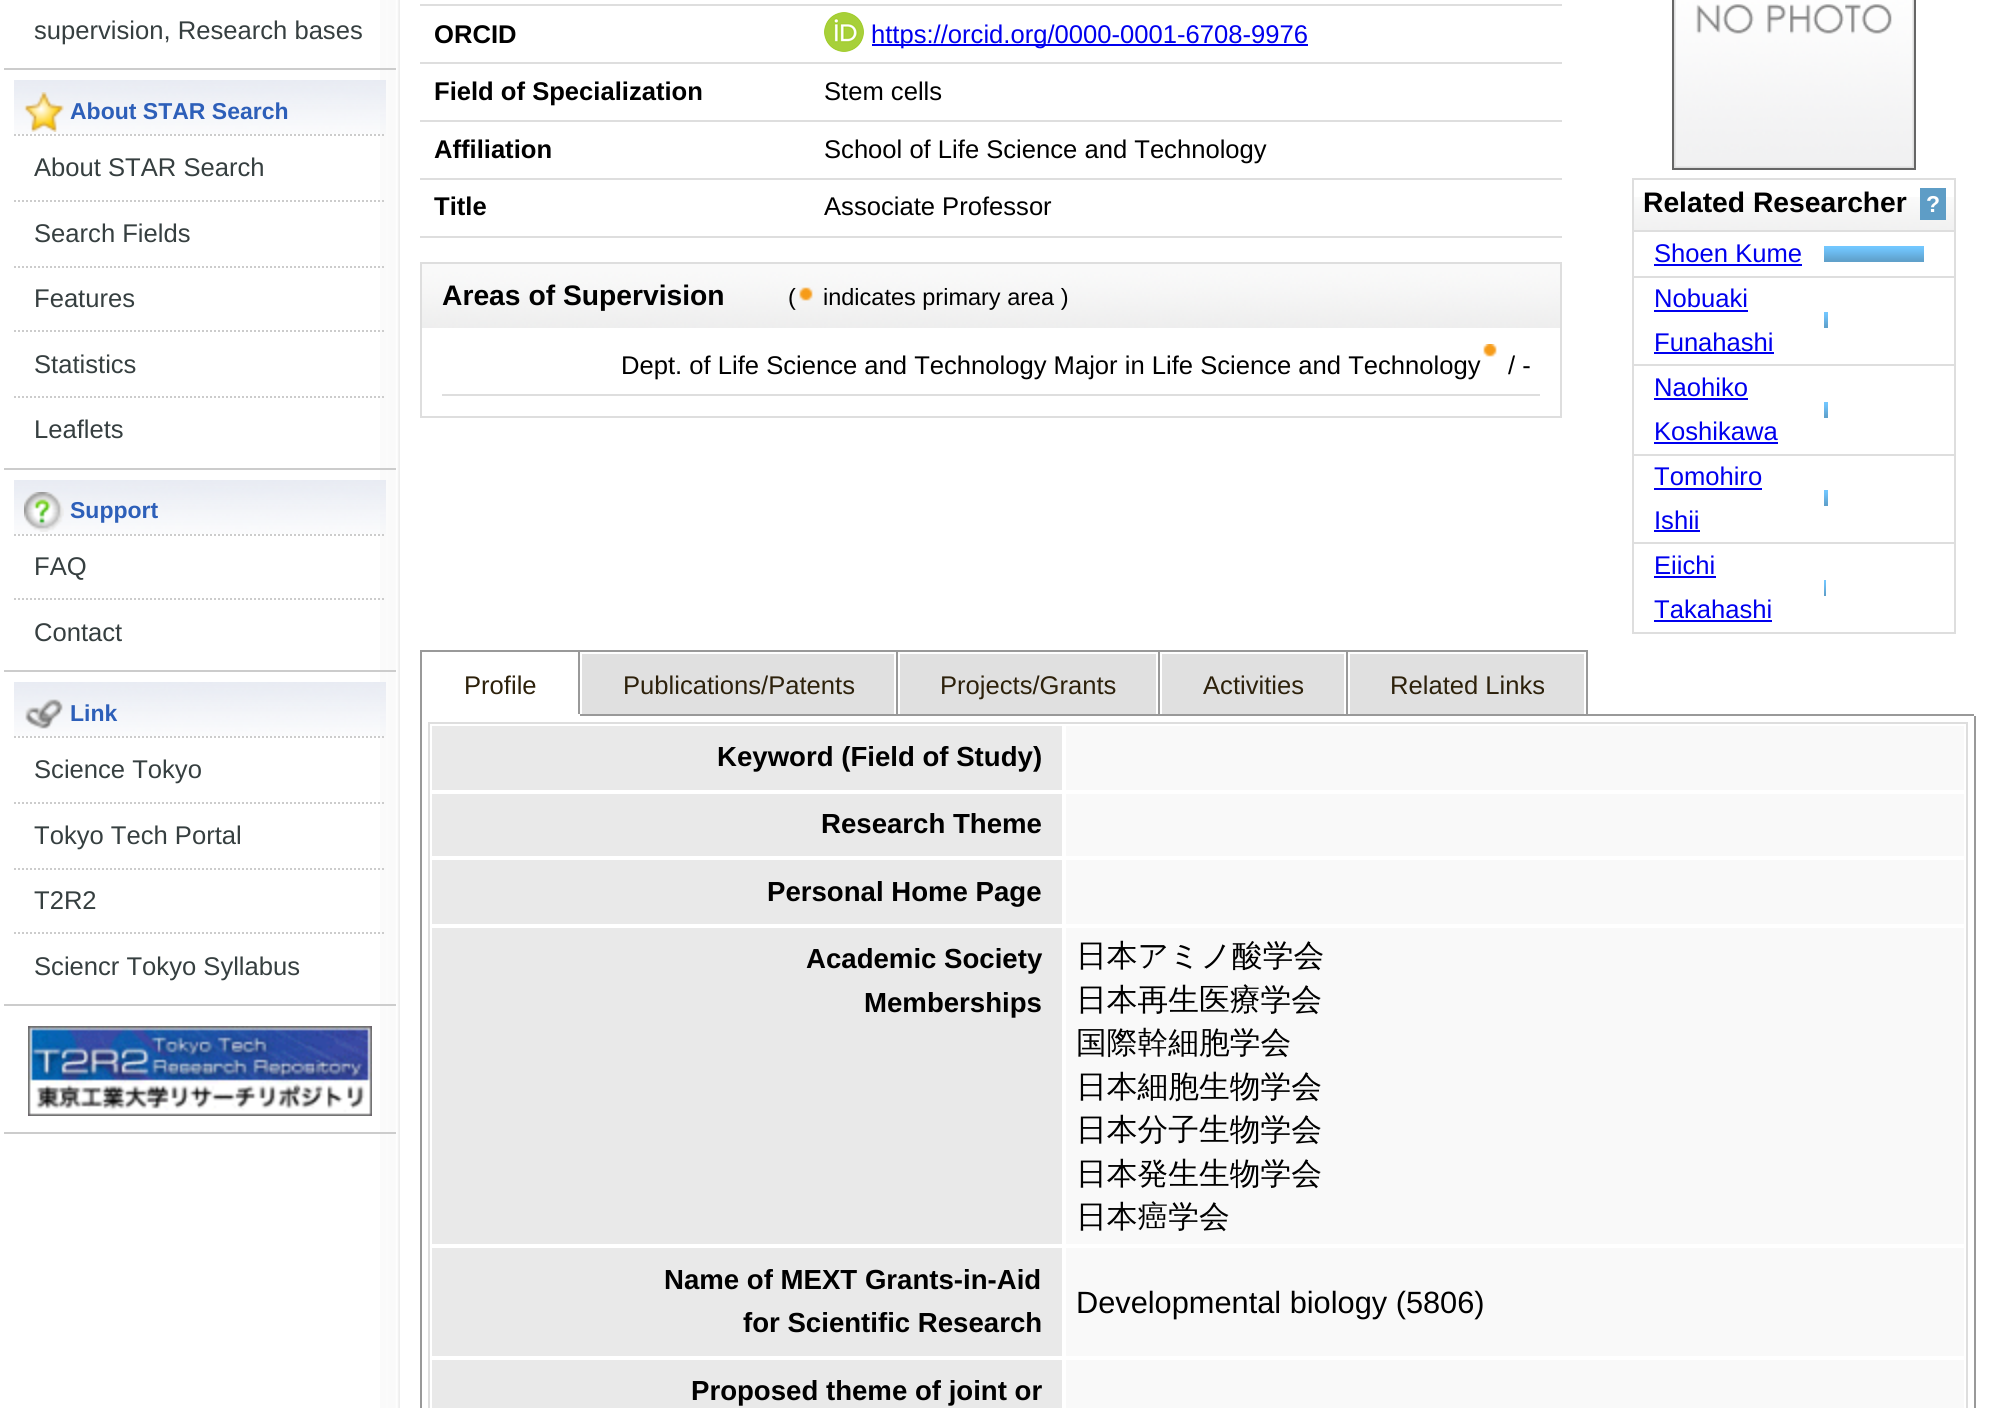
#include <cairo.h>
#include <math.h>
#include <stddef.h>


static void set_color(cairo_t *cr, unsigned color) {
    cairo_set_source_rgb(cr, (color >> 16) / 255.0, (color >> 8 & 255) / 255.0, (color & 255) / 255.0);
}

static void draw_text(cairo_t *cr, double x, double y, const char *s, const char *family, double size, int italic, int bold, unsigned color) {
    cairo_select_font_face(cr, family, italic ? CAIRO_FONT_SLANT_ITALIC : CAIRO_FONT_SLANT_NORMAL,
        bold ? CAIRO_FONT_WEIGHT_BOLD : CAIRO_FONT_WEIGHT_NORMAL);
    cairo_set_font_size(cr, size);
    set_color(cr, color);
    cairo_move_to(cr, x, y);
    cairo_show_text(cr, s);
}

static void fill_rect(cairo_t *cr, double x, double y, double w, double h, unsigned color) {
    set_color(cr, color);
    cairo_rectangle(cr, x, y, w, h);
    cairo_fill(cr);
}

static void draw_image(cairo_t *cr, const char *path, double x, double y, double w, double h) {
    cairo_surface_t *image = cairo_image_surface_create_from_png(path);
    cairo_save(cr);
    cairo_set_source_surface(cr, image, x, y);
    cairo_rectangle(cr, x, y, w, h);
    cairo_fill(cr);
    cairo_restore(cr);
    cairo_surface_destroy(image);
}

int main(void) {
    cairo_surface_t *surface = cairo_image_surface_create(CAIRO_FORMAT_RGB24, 1992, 1408);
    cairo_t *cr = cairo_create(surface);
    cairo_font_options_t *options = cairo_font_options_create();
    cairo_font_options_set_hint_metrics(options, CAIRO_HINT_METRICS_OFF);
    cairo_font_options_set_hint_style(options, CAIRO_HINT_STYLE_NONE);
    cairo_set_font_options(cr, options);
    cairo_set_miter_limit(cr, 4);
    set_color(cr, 0xFFFFFF);
    cairo_paint(cr);
    draw_image(cr, "assets/img1.png", 380, 0, 20, 1408);
    fill_rect(cr, 4, 68, 392, 2, 0xCCCCCC);
    draw_text(cr, 34, 39, "supervision, Research bases", "Liberation Sans", 25.6, 0, 0, 0x363F40);
    fill_rect(cr, 4, 468, 392, 2, 0xCCCCCC);
    draw_image(cr, "assets/img2.png", 14, 80, 372, 54);
    draw_image(cr, "assets/img3.png", 24, 92, 40, 40);
    draw_text(cr, 70, 119, "About STAR Search", "Liberation Sans", 23, 0, 1, 0x2D5FB9);
    cairo_new_path(cr);
    cairo_move_to(cr, 14, 135);
    cairo_line_to(cr, 386, 135);
    set_color(cr, 0xCCCCCC);
    cairo_set_dash(cr, (double[]){2, 2}, 2, 0);
    cairo_stroke(cr);
    draw_text(cr, 34, 176, "About STAR Search", "Liberation Sans", 25.6, 0, 0, 0x363F40);
    cairo_new_path(cr);
    cairo_move_to(cr, 14, 201);
    cairo_line_to(cr, 386, 201);
    set_color(cr, 0xCCCCCC);
    cairo_stroke(cr);
    draw_text(cr, 34, 242, "Search Fields", "Liberation Sans", 25.6, 0, 0, 0x363F40);
    cairo_new_path(cr);
    cairo_move_to(cr, 14, 267);
    cairo_line_to(cr, 386, 267);
    set_color(cr, 0xCCCCCC);
    cairo_stroke(cr);
    draw_text(cr, 34, 307, "Features", "Liberation Sans", 25.6, 0, 0, 0x363F40);
    cairo_new_path(cr);
    cairo_move_to(cr, 14, 331);
    cairo_line_to(cr, 386, 331);
    set_color(cr, 0xCCCCCC);
    cairo_stroke(cr);
    draw_text(cr, 34, 373, "Statistics", "Liberation Sans", 25.6, 0, 0, 0x363F40);
    cairo_new_path(cr);
    cairo_move_to(cr, 14, 397);
    cairo_line_to(cr, 386, 397);
    set_color(cr, 0xCCCCCC);
    cairo_stroke(cr);
    draw_text(cr, 34, 438, "Leaflets", "Liberation Sans", 25.6, 0, 0, 0x363F40);
    fill_rect(cr, 4, 670, 392, 2, 0xCCCCCC);
    draw_image(cr, "assets/img2.png", 14, 480, 372, 54);
    draw_image(cr, "assets/img4.png", 24, 492, 40, 40);
    draw_text(cr, 70, 518, "Support", "Liberation Sans", 23, 0, 1, 0x2D5FB9);
    cairo_new_path(cr);
    cairo_move_to(cr, 14, 535);
    cairo_line_to(cr, 386, 535);
    set_color(cr, 0xCCCCCC);
    cairo_stroke(cr);
    draw_text(cr, 34, 575, "FAQ", "Liberation Sans", 25.6, 0, 0, 0x363F40);
    cairo_new_path(cr);
    cairo_move_to(cr, 14, 599);
    cairo_line_to(cr, 386, 599);
    set_color(cr, 0xCCCCCC);
    cairo_stroke(cr);
    draw_text(cr, 34, 641, "Contact", "Liberation Sans", 25.6, 0, 0, 0x363F40);
    fill_rect(cr, 4, 1004, 392, 2, 0xCCCCCC);
    draw_image(cr, "assets/img2.png", 14, 682, 372, 54);
    draw_image(cr, "assets/img5.png", 25, 699, 38, 30);
    draw_text(cr, 70, 721, "Link", "Liberation Sans", 23, 0, 1, 0x2D5FB9);
    cairo_new_path(cr);
    cairo_move_to(cr, 14, 737);
    cairo_line_to(cr, 386, 737);
    set_color(cr, 0xCCCCCC);
    cairo_stroke(cr);
    draw_text(cr, 34, 778, "Science Tokyo", "Liberation Sans", 25.6, 0, 0, 0x363F40);
    cairo_new_path(cr);
    cairo_move_to(cr, 14, 803);
    cairo_line_to(cr, 386, 803);
    set_color(cr, 0xCCCCCC);
    cairo_stroke(cr);
    draw_text(cr, 34, 844, "Tokyo Tech Portal", "Liberation Sans", 25.6, 0, 0, 0x363F40);
    cairo_new_path(cr);
    cairo_move_to(cr, 14, 869);
    cairo_line_to(cr, 386, 869);
    set_color(cr, 0xCCCCCC);
    cairo_stroke(cr);
    draw_text(cr, 34, 909, "T2R2", "Liberation Sans", 25.6, 0, 0, 0x363F40);
    cairo_new_path(cr);
    cairo_move_to(cr, 14, 933);
    cairo_line_to(cr, 386, 933);
    set_color(cr, 0xCCCCCC);
    cairo_stroke(cr);
    draw_text(cr, 34, 975, "Sciencr Tokyo Syllabus", "Liberation Sans", 25.6, 0, 0, 0x363F40);
    fill_rect(cr, 4, 1132, 392, 2, 0xCCCCCC);
    draw_image(cr, "assets/img6.png", 28, 1026, 344, 90);
    fill_rect(cr, 420, 4, 1142, 2, 0xDEDEDE);
    draw_text(cr, 434, 43, "ORCID", "Liberation Sans", 25.6, 0, 1, 0x000000);
    fill_rect(cr, 420, 62, 1142, 2, 0xDEDEDE);
    draw_image(cr, "assets/img7.png", 824, 12, 40, 40);
    fill_rect(cr, 872, 44, 436, 2, 0x0000EE);
    draw_text(cr, 871, 43, "https://orcid.org/0000-0001-6708-9976", "Liberation Sans", 25.6, 0, 0, 0x0000EE);
    draw_text(cr, 434, 100, "Field of Specialization", "Liberation Sans", 25.6, 0, 1, 0x000000);
    fill_rect(cr, 420, 120, 1142, 2, 0xDEDEDE);
    draw_text(cr, 824, 100, "Stem cells", "Liberation Sans", 25.6, 0, 0, 0x000000);
    draw_text(cr, 434, 158, "Affiliation", "Liberation Sans", 25.6, 0, 1, 0x000000);
    fill_rect(cr, 420, 178, 1142, 2, 0xDEDEDE);
    draw_text(cr, 824, 158, "School of Life Science and Technology", "Liberation Sans", 25.6, 0, 0, 0x000000);
    draw_text(cr, 434, 215, "Title", "Liberation Sans", 25.6, 0, 1, 0x000000);
    fill_rect(cr, 420, 236, 1142, 2, 0xDEDEDE);
    draw_text(cr, 824, 215, "Associate Professor", "Liberation Sans", 25.6, 0, 0, 0x000000);
    draw_image(cr, "assets/img8.png", 422, 264, 1138, 64);
    fill_rect(cr, 420, 262, 1142, 2, 0xDEDEDE);
    fill_rect(cr, 1560, 262, 2, 156, 0xDEDEDE);
    fill_rect(cr, 420, 262, 2, 66, 0xDEDEDE);
    draw_text(cr, 442, 305, "Areas of Supervision", "Liberation Sans", 28.25, 0, 1, 0x000000);
    draw_text(cr, 788, 305, "(", "Liberation Sans", 23.5, 0, 0, 0x000000);
    draw_image(cr, "assets/img9.png", 799, 287, 14, 14);
    draw_text(cr, 823, 305, "indicates primary area )", "Liberation Sans", 23.5, 0, 0, 0x000000);
    fill_rect(cr, 420, 416, 1142, 2, 0xDEDEDE);
    fill_rect(cr, 420, 328, 2, 90, 0xDEDEDE);
    fill_rect(cr, 442, 394, 1098, 2, 0xDEDEDE);
    draw_image(cr, "assets/img10.png", 1483, 344, 14, 13);
    draw_text(cr, 621, 374, "Dept. of Life Science and Technology Major in Life Science and Technology", "Liberation Sans", 25.6, 0, 0, 0x000000);
    draw_text(cr, 1508, 374, "/ -", "Liberation Sans", 25.6, 0, 0, 0x000000);
    cairo_rectangle(cr, 1673, -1, 242, 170);
    set_color(cr, 0x666666);
    cairo_set_dash(cr, NULL, 0, 0);
    cairo_stroke(cr);
    draw_image(cr, "assets/img11.png", 1674, 0, 240, 168);
    cairo_rectangle(cr, 1633, 179, 322, 454);
    set_color(cr, 0xDEDEDE);
    cairo_stroke(cr);
    draw_image(cr, "assets/img12.png", 1634, 197, 320, 33);
    draw_text(cr, 1643, 212, "Related Researcher", "Liberation Sans", 28.25, 0, 1, 0x000000);
    fill_rect(cr, 1920, 188, 26, 32, 0x5E9DC6);
    draw_text(cr, 1926, 212, "?", "Liberation Sans", 23, 0, 1, 0xFFFFFF);
    fill_rect(cr, 1634, 230, 320, 2, 0xDEDEDE);
    draw_text(cr, 1654, 262, "Shoen Kume", "Liberation Sans", 25.6, 0, 0, 0x0000EE);
    fill_rect(cr, 1654, 264, 148, 2, 0x0000EE);
    draw_image(cr, "assets/img13.png", 1824, 246, 100, 16);
    fill_rect(cr, 1634, 276, 320, 2, 0xDEDEDE);
    draw_text(cr, 1654, 307, "Nobuaki", "Liberation Sans", 25.6, 0, 0, 0x0000EE);
    fill_rect(cr, 1654, 310, 94, 2, 0x0000EE);
    draw_text(cr, 1654, 351, "Funahashi", "Liberation Sans", 25.6, 0, 0, 0x0000EE);
    fill_rect(cr, 1654, 352, 120, 2, 0x0000EE);
    draw_image(cr, "assets/img14.png", 1824, 312, 4, 16);
    fill_rect(cr, 1634, 364, 320, 2, 0xDEDEDE);
    draw_text(cr, 1654, 396, "Naohiko", "Liberation Sans", 25.6, 0, 0, 0x0000EE);
    fill_rect(cr, 1654, 398, 94, 2, 0x0000EE);
    draw_text(cr, 1654, 440, "Koshikawa", "Liberation Sans", 25.6, 0, 0, 0x0000EE);
    fill_rect(cr, 1654, 442, 124, 2, 0x0000EE);
    draw_image(cr, "assets/img14.png", 1824, 402, 4, 16);
    fill_rect(cr, 1634, 454, 320, 2, 0xDEDEDE);
    draw_text(cr, 1654, 485, "Tomohiro", "Liberation Sans", 25.6, 0, 0, 0x0000EE);
    fill_rect(cr, 1654, 488, 108, 2, 0x0000EE);
    draw_text(cr, 1654, 529, "Ishii", "Liberation Sans", 25.6, 0, 0, 0x0000EE);
    fill_rect(cr, 1654, 530, 46, 2, 0x0000EE);
    draw_image(cr, "assets/img14.png", 1824, 490, 4, 16);
    fill_rect(cr, 1634, 542, 320, 2, 0xDEDEDE);
    draw_text(cr, 1654, 574, "Eiichi", "Liberation Sans", 25.6, 0, 0, 0x0000EE);
    fill_rect(cr, 1654, 576, 62, 2, 0x0000EE);
    draw_text(cr, 1654, 618, "Takahashi", "Liberation Sans", 25.6, 0, 0, 0x0000EE);
    fill_rect(cr, 1654, 620, 118, 2, 0x0000EE);
    draw_image(cr, "assets/img15.png", 1824, 580, 2, 16);
    fill_rect(cr, 1588, 714, 386, 2, 0x999999);
    fill_rect(cr, 420, 650, 2, 758, 0x999999);
    fill_rect(cr, 422, 650, 1166, 2, 0x999999);
    fill_rect(cr, 578, 650, 2, 66, 0x999999);
    fill_rect(cr, 578, 714, 2, 2, 0xFFFFFF);
    draw_text(cr, 464, 694, "Profile", "Liberation Sans", 25.6, 0, 0, 0x2D210B);
    fill_rect(cr, 582, 654, 312, 60, 0xE0E0E0);
    fill_rect(cr, 896, 650, 2, 66, 0x999999);
    fill_rect(cr, 580, 714, 318, 2, 0x999999);
    draw_text(cr, 623, 694, "Publications/Patents", "Liberation Sans", 25.6, 0, 0, 0x2D210B);
    fill_rect(cr, 900, 654, 256, 60, 0xE0E0E0);
    fill_rect(cr, 1158, 650, 2, 66, 0x999999);
    fill_rect(cr, 898, 714, 262, 2, 0x999999);
    draw_text(cr, 940, 694, "Projects/Grants", "Liberation Sans", 25.6, 0, 0, 0x2D210B);
    fill_rect(cr, 1162, 654, 182, 60, 0xE0E0E0);
    fill_rect(cr, 1346, 650, 2, 66, 0x999999);
    fill_rect(cr, 1160, 714, 188, 2, 0x999999);
    draw_text(cr, 1203, 694, "Activities", "Liberation Sans", 25.6, 0, 0, 0x2D210B);
    fill_rect(cr, 1350, 654, 234, 60, 0xE0E0E0);
    fill_rect(cr, 1586, 650, 2, 66, 0x999999);
    fill_rect(cr, 1348, 714, 240, 2, 0x999999);
    draw_text(cr, 1390, 694, "Related Links", "Liberation Sans", 25.6, 0, 0, 0x2D210B);
    fill_rect(cr, 1974, 716, 2, 692, 0x999999);
    cairo_rectangle(cr, 429, 723, 1538, 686);
    set_color(cr, 0xDEDEDE);
    cairo_stroke(cr);
    fill_rect(cr, 432, 726, 630, 64, 0xE9E9E9);
    fill_rect(cr, 1066, 726, 898, 64, 0xF9F9F9);
    draw_text(cr, 717, 766, "Keyword (Field of Study)", "Liberation Sans", 27.6, 0, 1, 0x000000);
    fill_rect(cr, 432, 794, 630, 62, 0xE9E9E9);
    fill_rect(cr, 1066, 794, 898, 62, 0xF9F9F9);
    draw_text(cr, 821, 833, "Research Theme", "Liberation Sans", 27.6, 0, 1, 0x000000);
    fill_rect(cr, 432, 860, 630, 64, 0xE9E9E9);
    fill_rect(cr, 1066, 860, 898, 64, 0xF9F9F9);
    draw_text(cr, 767, 901, "Personal Home Page", "Liberation Sans", 27.6, 0, 1, 0x000000);
    fill_rect(cr, 432, 928, 630, 316, 0xE9E9E9);
    fill_rect(cr, 1066, 928, 898, 316, 0xF9F9F9);
    draw_text(cr, 1076, 966, "日本アミノ酸学会", "WenQuanYi Zen Hei Medium", 30.75, 0, 0, 0x000000);
    draw_text(cr, 1076, 1010, "日本再生医療学会", "WenQuanYi Zen Hei Medium", 30.75, 0, 0, 0x000000);
    draw_text(cr, 1076, 1053, "国際幹細胞学会", "WenQuanYi Zen Hei Medium", 30.75, 0, 0, 0x000000);
    draw_text(cr, 1076, 1097, "日本細胞生物学会", "WenQuanYi Zen Hei Medium", 30.75, 0, 0, 0x000000);
    draw_text(cr, 1076, 1140, "日本分子生物学会", "WenQuanYi Zen Hei Medium", 30.75, 0, 0, 0x000000);
    draw_text(cr, 1076, 1184, "日本発生生物学会", "WenQuanYi Zen Hei Medium", 30.75, 0, 0, 0x000000);
    draw_text(cr, 1076, 1227, "日本癌学会", "WenQuanYi Zen Hei Medium", 30.75, 0, 0, 0x000000);
    draw_text(cr, 806, 968, "Academic Society", "Liberation Sans", 27.6, 0, 1, 0x000000);
    draw_text(cr, 864, 1012, "Memberships", "Liberation Sans", 27.6, 0, 1, 0x000000);
    fill_rect(cr, 432, 1248, 630, 108, 0xE9E9E9);
    draw_text(cr, 664, 1289, "Name of MEXT Grants-in-Aid", "Liberation Sans", 27.6, 0, 1, 0x000000);
    draw_text(cr, 743, 1332, "for Scientific Research", "Liberation Sans", 27.6, 0, 1, 0x000000);
    fill_rect(cr, 1066, 1248, 898, 108, 0xF9F9F9);
    draw_text(cr, 1076, 1313, "Developmental biology (5806)", "Liberation Sans", 30.75, 0, 0, 0x000000);
    fill_rect(cr, 432, 1360, 630, 48, 0xE9E9E9);
    fill_rect(cr, 1066, 1360, 898, 48, 0xF9F9F9);
    draw_text(cr, 691, 1400, "Proposed theme of joint or", "Liberation Sans", 27.6, 0, 1, 0x000000);
    cairo_surface_write_to_png(surface, "output.png");
    cairo_font_options_destroy(options);
    cairo_destroy(cr);
    cairo_surface_destroy(surface);
    return 0;
}
